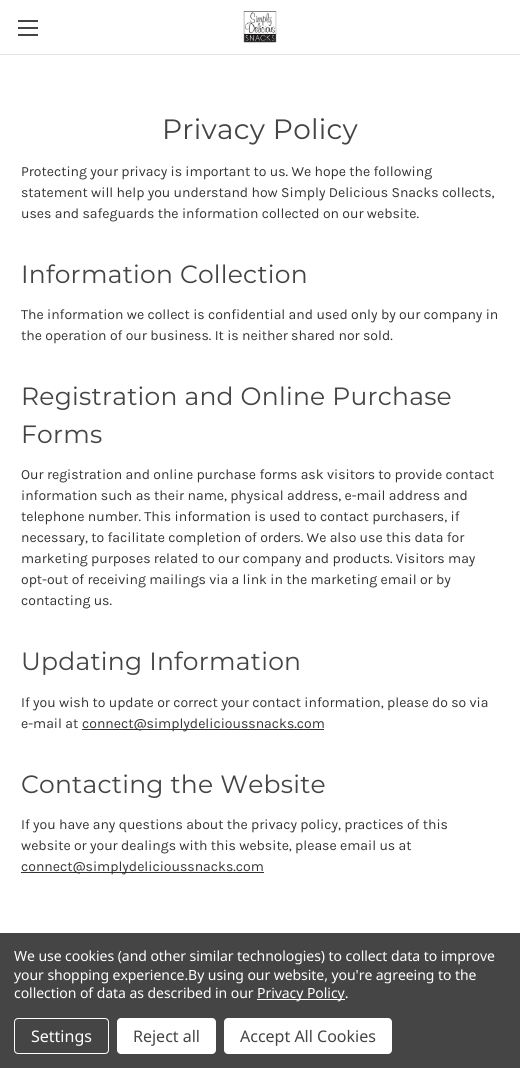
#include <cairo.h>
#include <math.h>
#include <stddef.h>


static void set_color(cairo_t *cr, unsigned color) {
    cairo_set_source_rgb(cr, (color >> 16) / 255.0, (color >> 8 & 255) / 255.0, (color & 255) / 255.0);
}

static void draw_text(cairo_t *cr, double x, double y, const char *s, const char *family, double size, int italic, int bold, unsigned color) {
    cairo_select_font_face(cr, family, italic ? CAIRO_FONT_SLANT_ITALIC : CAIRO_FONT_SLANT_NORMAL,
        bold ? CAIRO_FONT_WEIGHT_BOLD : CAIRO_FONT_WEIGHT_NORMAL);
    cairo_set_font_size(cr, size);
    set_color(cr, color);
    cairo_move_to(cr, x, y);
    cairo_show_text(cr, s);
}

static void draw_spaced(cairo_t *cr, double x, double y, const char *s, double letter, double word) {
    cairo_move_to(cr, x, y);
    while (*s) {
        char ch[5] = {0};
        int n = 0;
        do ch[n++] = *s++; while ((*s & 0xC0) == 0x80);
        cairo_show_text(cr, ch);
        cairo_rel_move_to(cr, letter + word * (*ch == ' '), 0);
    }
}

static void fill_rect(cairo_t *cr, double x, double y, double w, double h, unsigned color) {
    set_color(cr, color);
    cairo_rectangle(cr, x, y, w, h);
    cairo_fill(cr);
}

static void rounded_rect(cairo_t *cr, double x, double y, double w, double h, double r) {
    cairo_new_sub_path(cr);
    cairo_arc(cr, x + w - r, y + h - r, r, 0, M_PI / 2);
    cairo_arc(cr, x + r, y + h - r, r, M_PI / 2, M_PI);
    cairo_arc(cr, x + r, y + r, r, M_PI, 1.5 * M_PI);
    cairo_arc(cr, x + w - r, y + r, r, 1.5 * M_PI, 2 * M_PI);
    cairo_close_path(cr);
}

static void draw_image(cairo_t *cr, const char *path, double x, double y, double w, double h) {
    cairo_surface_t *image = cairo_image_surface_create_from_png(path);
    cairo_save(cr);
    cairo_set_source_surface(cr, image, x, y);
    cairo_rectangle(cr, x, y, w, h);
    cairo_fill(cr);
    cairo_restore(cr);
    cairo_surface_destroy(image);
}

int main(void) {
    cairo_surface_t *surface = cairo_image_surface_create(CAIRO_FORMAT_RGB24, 520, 1068);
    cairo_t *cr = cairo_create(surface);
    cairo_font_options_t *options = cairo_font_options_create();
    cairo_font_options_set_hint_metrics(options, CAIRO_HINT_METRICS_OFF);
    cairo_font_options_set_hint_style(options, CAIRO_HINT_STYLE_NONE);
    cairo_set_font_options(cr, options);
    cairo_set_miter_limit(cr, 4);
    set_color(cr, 0xFFFFFF);
    cairo_paint(cr);
    fill_rect(cr, 0, 54, 520, 1, 0xE5E5E5);
    fill_rect(cr, 18, 27, 20, 2, 0x444444);
    fill_rect(cr, 18, 20, 20, 2, 0x444444);
    fill_rect(cr, 18, 34, 20, 2, 0x444444);
    draw_image(cr, "assets/img1.png", 243, 11, 34, 32);
    cairo_select_font_face(cr, "Montserrat", CAIRO_FONT_SLANT_NORMAL, CAIRO_FONT_WEIGHT_NORMAL);
    cairo_set_font_size(cr, 28);
    draw_spaced(cr, 162, 139, "Privacy Policy", 0.25, 0);
    draw_text(cr, 21, 176, "Protecting your privacy is important to us. We hope the following", "Karla", 14, 0, 0, 0x333333);
    draw_text(cr, 21, 197, "statement will help you understand how Simply Delicious Snacks collects,", "Karla", 14, 0, 0, 0x333333);
    draw_text(cr, 21, 218, "uses and safeguards the information collected on our website.", "Karla", 14, 0, 0, 0x333333);
    cairo_select_font_face(cr, "Montserrat", CAIRO_FONT_SLANT_NORMAL, CAIRO_FONT_WEIGHT_NORMAL);
    cairo_set_font_size(cr, 25);
    set_color(cr, 0x444444);
    draw_spaced(cr, 21, 283, "Information Collection", 0.25, 0);
    draw_text(cr, 21, 319, "The information we collect is confidential and used only by our company in", "Karla", 14, 0, 0, 0x333333);
    draw_text(cr, 21, 340, "the operation of our business. It is neither shared nor sold.", "Karla", 14, 0, 0, 0x333333);
    cairo_select_font_face(cr, "Montserrat", CAIRO_FONT_SLANT_NORMAL, CAIRO_FONT_WEIGHT_NORMAL);
    cairo_set_font_size(cr, 25);
    set_color(cr, 0x444444);
    draw_spaced(cr, 21, 405, "Registration and Online Purchase", 0.25, 0);
    draw_spaced(cr, 21, 443, "Forms", 0.25, 0);
    draw_text(cr, 21, 479, "Our registration and online purchase forms ask visitors to provide contact", "Karla", 14, 0, 0, 0x333333);
    draw_text(cr, 21, 500, "information such as their name, physical address, e-mail address and", "Karla", 14, 0, 0, 0x333333);
    draw_text(cr, 21, 521, "telephone number. This information is used to contact purchasers, if", "Karla", 14, 0, 0, 0x333333);
    draw_text(cr, 21, 542, "necessary, to facilitate completion of orders. We also use this data for", "Karla", 14, 0, 0, 0x333333);
    draw_text(cr, 21, 563, "marketing purposes related to our company and products. Visitors may", "Karla", 14, 0, 0, 0x333333);
    draw_text(cr, 21, 584, "opt-out of receiving mailings via a link in the marketing email or by", "Karla", 14, 0, 0, 0x333333);
    draw_text(cr, 21, 605, "contacting us.", "Karla", 14, 0, 0, 0x333333);
    cairo_select_font_face(cr, "Montserrat", CAIRO_FONT_SLANT_NORMAL, CAIRO_FONT_WEIGHT_NORMAL);
    cairo_set_font_size(cr, 25);
    set_color(cr, 0x444444);
    draw_spaced(cr, 21, 670, "Updating Information", 0.25, 0);
    draw_text(cr, 21, 707, "If you wish to update or correct your contact information, please do so via", "Karla", 14, 0, 0, 0x333333);
    draw_text(cr, 21, 728, "e-mail at", "Karla", 14, 0, 0, 0x333333);
    fill_rect(cr, 82, 729, 242, 1, 0x333333);
    draw_text(cr, 82, 728, "connect@simplydelicioussnacks.com", "Karla", 14, 0, 0, 0x333333);
    cairo_select_font_face(cr, "Montserrat", CAIRO_FONT_SLANT_NORMAL, CAIRO_FONT_WEIGHT_NORMAL);
    cairo_set_font_size(cr, 25);
    set_color(cr, 0x444444);
    draw_spaced(cr, 21, 793, "Contacting the Website", 0.25, 0);
    draw_text(cr, 21, 829, "If you have any questions about the privacy policy, practices of this", "Karla", 14, 0, 0, 0x333333);
    draw_text(cr, 21, 850, "website or your dealings with this website, please email us at", "Karla", 14, 0, 0, 0x333333);
    fill_rect(cr, 21, 872, 243, 1, 0x333333);
    draw_text(cr, 21, 871, "connect@simplydelicioussnacks.com", "Karla", 14, 0, 0, 0x333333);
    fill_rect(cr, 0, 933, 520, 135, 0x454545);
    cairo_select_font_face(cr, "Noto Sans", CAIRO_FONT_SLANT_NORMAL, CAIRO_FONT_WEIGHT_NORMAL);
    set_color(cr, 0xFFFFFF);
    draw_spaced(cr, 14, 961, "We use cookies (and other similar technologies) to collect data to improve", -0.05, 0);
    draw_spaced(cr, 14, 980, "your shopping experience.By using our website, you're agreeing to the", -0.05, 0);
    draw_spaced(cr, 14, 998, "collection of data as described in our", -0.05, 0);
    fill_rect(cr, 257, 999, 88, 1, 0xFFFFFF);
    draw_spaced(cr, 257, 998, "Privacy Policy.", -0.05, 0);
    rounded_rect(cr, 14.5, 1018.5, 94, 35, 3.5);
    cairo_set_line_width(cr, 1);
    cairo_stroke(cr);
    draw_text(cr, 31, 1042, "Settings", "Noto Sans", 16, 0, 0, 0xFFFFFF);
    rounded_rect(cr, 117, 1018, 99, 36, 4);
    cairo_fill(cr);
    draw_text(cr, 133, 1042, "Reject all", "Noto Sans", 16, 0, 0, 0x444444);
    set_color(cr, 0xFFFFFF);
    rounded_rect(cr, 224, 1018, 168, 36, 4);
    cairo_fill(cr);
    draw_text(cr, 240, 1042, "Accept All Cookies", "Noto Sans", 16, 0, 0, 0x444444);
    cairo_surface_write_to_png(surface, "output.png");
    cairo_font_options_destroy(options);
    cairo_destroy(cr);
    cairo_surface_destroy(surface);
    return 0;
}
